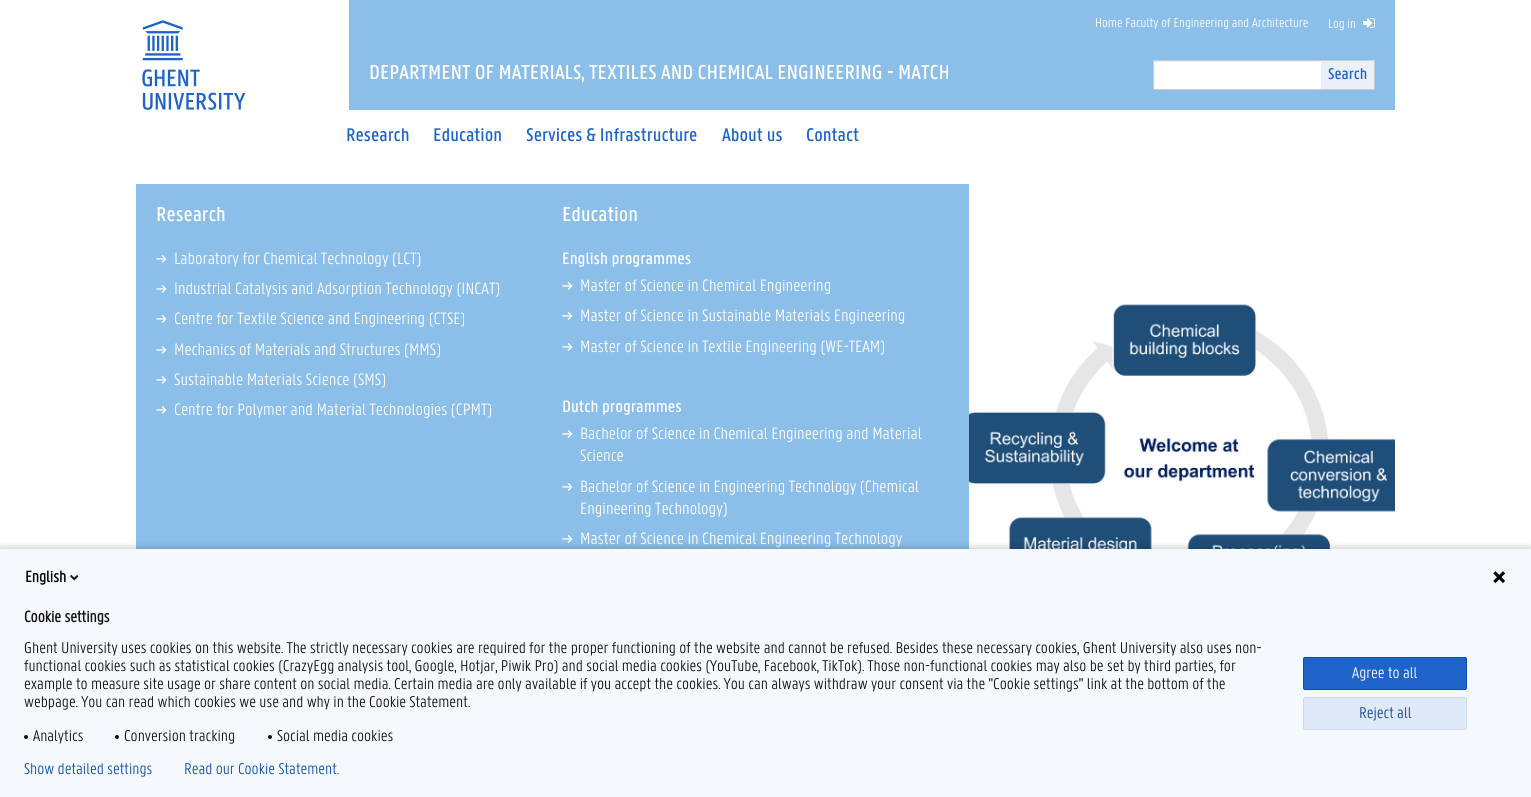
#include <cairo.h>
#include <math.h>
#include <stddef.h>


static void set_color(cairo_t *cr, unsigned color) {
    cairo_set_source_rgb(cr, (color >> 16) / 255.0, (color >> 8 & 255) / 255.0, (color & 255) / 255.0);
}

static void draw_text(cairo_t *cr, double x, double y, const char *s, const char *family, double size, int italic, int bold, unsigned color) {
    cairo_select_font_face(cr, family, italic ? CAIRO_FONT_SLANT_ITALIC : CAIRO_FONT_SLANT_NORMAL,
        bold ? CAIRO_FONT_WEIGHT_BOLD : CAIRO_FONT_WEIGHT_NORMAL);
    cairo_set_font_size(cr, size);
    set_color(cr, color);
    cairo_move_to(cr, x, y);
    cairo_show_text(cr, s);
}

static void fill_rect(cairo_t *cr, double x, double y, double w, double h, unsigned color) {
    set_color(cr, color);
    cairo_rectangle(cr, x, y, w, h);
    cairo_fill(cr);
}

static void rounded_rect(cairo_t *cr, double x, double y, double w, double h, double r) {
    cairo_new_sub_path(cr);
    cairo_arc(cr, x + w - r, y + h - r, r, 0, M_PI / 2);
    cairo_arc(cr, x + r, y + h - r, r, M_PI / 2, M_PI);
    cairo_arc(cr, x + r, y + r, r, M_PI, 1.5 * M_PI);
    cairo_arc(cr, x + w - r, y + r, r, 1.5 * M_PI, 2 * M_PI);
    cairo_close_path(cr);
}

static void draw_shadow(cairo_t *cr, double x, double y, double w, double h, double r, double blur, double alpha) {
    cairo_push_group_with_content(cr, CAIRO_CONTENT_ALPHA);
    cairo_set_operator(cr, CAIRO_OPERATOR_SOURCE);
    for (int i = 15; i >= -15 && fmin(w, h) + blur * i / 3 > 0; i -= 2) {
        double e = blur * i / 6;
        cairo_set_source_rgba(cr, 0, 0, 0, alpha * erfc((i - 1) / 8.5) / 2);
        rounded_rect(cr, x - e, y - e, w + 2 * e, h + 2 * e, fmax(0, fmin(r + e + blur * .6, fmin(w, h) / 2 + e)));
        cairo_fill(cr);
    }
    cairo_pattern_t *soft = cairo_pop_group(cr);
    cairo_mask(cr, soft);
    cairo_pattern_destroy(soft);
}

static void draw_image(cairo_t *cr, const char *path, double x, double y, double w, double h) {
    cairo_surface_t *image = cairo_image_surface_create_from_png(path);
    cairo_save(cr);
    cairo_set_source_surface(cr, image, x, y);
    cairo_rectangle(cr, x, y, w, h);
    cairo_fill(cr);
    cairo_restore(cr);
    cairo_surface_destroy(image);
}

int main(void) {
    cairo_surface_t *surface = cairo_image_surface_create(CAIRO_FORMAT_RGB24, 1531, 797);
    cairo_t *cr = cairo_create(surface);
    cairo_font_options_t *options = cairo_font_options_create();
    cairo_font_options_set_hint_metrics(options, CAIRO_HINT_METRICS_OFF);
    cairo_font_options_set_hint_style(options, CAIRO_HINT_STYLE_NONE);
    cairo_set_font_options(cr, options);
    cairo_set_miter_limit(cr, 4);
    set_color(cr, 0xFFFFFF);
    cairo_paint(cr);
    draw_image(cr, "assets/img1.png", 142, 20, 104, 90);
    fill_rect(cr, 349, 0, 1046, 110, 0x8BBEE8);
    draw_text(cr, 1095, 27, "Home Faculty of Engineering and Architecture", "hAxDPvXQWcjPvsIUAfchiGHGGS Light", 14, 0, 0, 0xFFFFFF);
    draw_text(cr, 1328, 28, "Log in", "hAxDPvXQWcjPvsIUAfchiGHGGS Light", 14, 0, 0, 0xFFFFFF);
    draw_image(cr, "assets/img2.png", 1363, 18, 12, 10);
    cairo_rectangle(cr, 1153.5, 60.5, 221, 29);
    set_color(cr, 0xCCCCCC);
    cairo_set_line_width(cr, 1);
    cairo_stroke(cr);
    fill_rect(cr, 1154, 62, 167, 27, 0xFFFFFF);
    fill_rect(cr, 1154, 61, 167, 1, 0xECECEC);
    fill_rect(cr, 1321, 61, 53, 28, 0xE9F0FA);
    draw_text(cr, 1328, 79, "Search", "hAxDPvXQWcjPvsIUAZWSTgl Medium", 17, 0, 0, 0x1E64C8);
    draw_text(cr, 346, 141, "Research", "hAxDPvXQWcjPvsIUAZWSTgl Medium", 20, 0, 0, 0x1E64C8);
    draw_text(cr, 433, 141, "Education", "hAxDPvXQWcjPvsIUAZWSTgl Medium", 20, 0, 0, 0x1E64C8);
    draw_text(cr, 526, 141, "Services & Infrastructure", "hAxDPvXQWcjPvsIUAZWSTgl Medium", 20, 0, 0, 0x1E64C8);
    draw_text(cr, 722, 141, "About us", "hAxDPvXQWcjPvsIUAZWSTgl Medium", 20, 0, 0, 0x1E64C8);
    draw_text(cr, 806, 141, "Contact", "hAxDPvXQWcjPvsIUAZWSTgl Medium", 20, 0, 0, 0x1E64C8);
    draw_text(cr, 369, 79, "DEPARTMENT OF MATERIALS, TEXTILES AND CHEMICAL ENGINEERING - MATCH", "hAxDPvXQWcjPvsIUAZWSTgl Medium", 22, 0, 0, 0xFFFFFF);
    fill_rect(cr, 136, 184, 833, 365, 0x8BBEE8);
    draw_text(cr, 156, 221, "Research", "hAxDPvXQWcjPvsIUAZWSTgl Medium", 22, 0, 0, 0xFFFFFF);
    draw_text(cr, 156, 264, "→", "hAxDPvXQWcjPvsIUAZWSTgl Medium", 16, 0, 0, 0xFFFFFF);
    draw_text(cr, 174, 264, "Laboratory for Chemical Technology (LCT)", "hAxDPvXQWcjPvsIUAfchiGHGGS Light", 18, 0, 0, 0xFFFFFF);
    draw_text(cr, 156, 294, "→", "hAxDPvXQWcjPvsIUAZWSTgl Medium", 16, 0, 0, 0xFFFFFF);
    draw_text(cr, 174, 294, "Industrial Catalysis and Adsorption Technology (INCAT)", "hAxDPvXQWcjPvsIUAfchiGHGGS Light", 18, 0, 0, 0xFFFFFF);
    draw_text(cr, 156, 324, "→", "hAxDPvXQWcjPvsIUAZWSTgl Medium", 16, 0, 0, 0xFFFFFF);
    draw_text(cr, 174, 324, "Centre for Textile Science and Engineering (CTSE)", "hAxDPvXQWcjPvsIUAfchiGHGGS Light", 18, 0, 0, 0xFFFFFF);
    draw_text(cr, 156, 355, "→", "hAxDPvXQWcjPvsIUAZWSTgl Medium", 16, 0, 0, 0xFFFFFF);
    draw_text(cr, 174, 355, "Mechanics of Materials and Structures (MMS)", "hAxDPvXQWcjPvsIUAfchiGHGGS Light", 18, 0, 0, 0xFFFFFF);
    draw_text(cr, 156, 385, "→", "hAxDPvXQWcjPvsIUAZWSTgl Medium", 16, 0, 0, 0xFFFFFF);
    draw_text(cr, 174, 385, "Sustainable Materials Science (SMS)", "hAxDPvXQWcjPvsIUAfchiGHGGS Light", 18, 0, 0, 0xFFFFFF);
    draw_text(cr, 156, 415, "→", "hAxDPvXQWcjPvsIUAZWSTgl Medium", 16, 0, 0, 0xFFFFFF);
    draw_text(cr, 174, 415, "Centre for Polymer and Material Technologies (CPMT)", "hAxDPvXQWcjPvsIUAfchiGHGGS Light", 18, 0, 0, 0xFFFFFF);
    draw_text(cr, 562, 221, "Education", "hAxDPvXQWcjPvsIUAZWSTgl Medium", 22, 0, 0, 0xFFFFFF);
    draw_text(cr, 562, 264, "English programmes", "hAxDPvXQWcjPvsIUAZWSTgl Medium", 18, 0, 0, 0xFFFFFF);
    draw_text(cr, 562, 291, "→", "hAxDPvXQWcjPvsIUAZWSTgl Medium", 16, 0, 0, 0xFFFFFF);
    draw_text(cr, 580, 291, "Master of Science in Chemical Engineering", "hAxDPvXQWcjPvsIUAfchiGHGGS Light", 18, 0, 0, 0xFFFFFF);
    draw_text(cr, 562, 321, "→", "hAxDPvXQWcjPvsIUAZWSTgl Medium", 16, 0, 0, 0xFFFFFF);
    draw_text(cr, 580, 321, "Master of Science in Sustainable Materials Engineering", "hAxDPvXQWcjPvsIUAfchiGHGGS Light", 18, 0, 0, 0xFFFFFF);
    draw_text(cr, 562, 352, "→", "hAxDPvXQWcjPvsIUAZWSTgl Medium", 16, 0, 0, 0xFFFFFF);
    draw_text(cr, 580, 352, "Master of Science in Textile Engineering (WE-TEAM)", "hAxDPvXQWcjPvsIUAfchiGHGGS Light", 18, 0, 0, 0xFFFFFF);
    draw_text(cr, 562, 412, "Dutch programmes", "hAxDPvXQWcjPvsIUAZWSTgl Medium", 18, 0, 0, 0xFFFFFF);
    draw_text(cr, 562, 439, "→", "hAxDPvXQWcjPvsIUAZWSTgl Medium", 16, 0, 0, 0xFFFFFF);
    draw_text(cr, 580, 439, "Bachelor of Science in Chemical Engineering and Material", "hAxDPvXQWcjPvsIUAfchiGHGGS Light", 18, 0, 0, 0xFFFFFF);
    draw_text(cr, 580, 461, "Science", "hAxDPvXQWcjPvsIUAfchiGHGGS Light", 18, 0, 0, 0xFFFFFF);
    draw_text(cr, 562, 492, "→", "hAxDPvXQWcjPvsIUAZWSTgl Medium", 16, 0, 0, 0xFFFFFF);
    draw_text(cr, 580, 492, "Bachelor of Science in Engineering Technology (Chemical", "hAxDPvXQWcjPvsIUAfchiGHGGS Light", 18, 0, 0, 0xFFFFFF);
    draw_text(cr, 580, 514, "Engineering Technology)", "hAxDPvXQWcjPvsIUAfchiGHGGS Light", 18, 0, 0, 0xFFFFFF);
    draw_text(cr, 562, 544, "→", "hAxDPvXQWcjPvsIUAZWSTgl Medium", 16, 0, 0, 0xFFFFFF);
    draw_text(cr, 580, 544, "Master of Science in Chemical Engineering Technology", "hAxDPvXQWcjPvsIUAfchiGHGGS Light", 18, 0, 0, 0xFFFFFF);
    draw_image(cr, "assets/img3.png", 969, 184, 426, 365);
    set_color(cr, 0x000000);
    draw_shadow(cr, -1, 546, 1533, 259, 0, 2.5, 0.14);
    fill_rect(cr, 0, 549, 1531, 248, 0xF5F8FC);
    draw_text(cr, 25, 582, "English", "hAxDPvXQWcjPvsIUAfchiGHGGS", 17, 0, 1, 0x000000);
    draw_image(cr, "assets/img4.png", 70, 574, 9, 7);
    draw_image(cr, "assets/img5.png", 1493, 571, 13, 13);
    draw_text(cr, 24, 622, "Cookie settings", "hAxDPvXQWcjPvsIUAfchiGHGGS", 17, 0, 1, 0x131313);
    draw_text(cr, 24, 653, "Ghent University uses cookies on this website. The strictly necessary cookies are required for the proper functioning of the website and cannot be refused. Besides these necessary cookies, Ghent University also uses non-", "hAxDPvXQWcjPvsIUAfchiGHGGS Light", 17, 0, 0, 0x131313);
    draw_text(cr, 24, 671, "functional cookies such as statistical cookies (CrazyEgg analysis tool, Google, Hotjar, Piwik Pro) and social media cookies (YouTube, Facebook, TikTok). Those non-functional cookies may also be set by third parties, for", "hAxDPvXQWcjPvsIUAfchiGHGGS Light", 17, 0, 0, 0x131313);
    draw_text(cr, 24, 689, "example to measure site usage or share content on social media. Certain media are only available if you accept the cookies. You can always withdraw your consent via the \"Cookie settings\" link at the bottom of the", "hAxDPvXQWcjPvsIUAfchiGHGGS Light", 17, 0, 0, 0x131313);
    draw_text(cr, 24, 707, "webpage. You can read which cookies we use and why in the Cookie Statement.", "hAxDPvXQWcjPvsIUAfchiGHGGS Light", 17, 0, 0, 0x131313);
    cairo_new_path(cr);
    cairo_arc(cr, 26, 737, 2, 0, 2 * M_PI);
    cairo_fill(cr);
    draw_text(cr, 33, 741, "Analytics", "hAxDPvXQWcjPvsIUAfchiGHGGS Light", 17, 0, 0, 0x131313);
    cairo_new_path(cr);
    cairo_arc(cr, 117, 737, 2, 0, 2 * M_PI);
    cairo_fill(cr);
    draw_text(cr, 124, 741, "Conversion tracking", "hAxDPvXQWcjPvsIUAfchiGHGGS Light", 17, 0, 0, 0x131313);
    cairo_new_path(cr);
    cairo_arc(cr, 270, 737, 2, 0, 2 * M_PI);
    cairo_fill(cr);
    draw_text(cr, 277, 741, "Social media cookies", "hAxDPvXQWcjPvsIUAfchiGHGGS Light", 17, 0, 0, 0x131313);
    set_color(cr, 0x1E64C8);
    rounded_rect(cr, 1303.5, 657.5, 163, 32, 1.5);
    cairo_fill_preserve(cr);
    set_color(cr, 0x0B4BB3);
    cairo_stroke(cr);
    draw_text(cr, 1352, 678, "Agree to all", "hAxDPvXQWcjPvsIUAfchiGHGGS Light", 17, 0, 0, 0xFFFFFF);
    set_color(cr, 0xE0E9F7);
    rounded_rect(cr, 1303.5, 697.5, 163, 32, 1.5);
    cairo_fill_preserve(cr);
    set_color(cr, 0xCDDCF2);
    cairo_stroke(cr);
    draw_text(cr, 1359, 718, "Reject all", "hAxDPvXQWcjPvsIUAfchiGHGGS Light", 17, 0, 0, 0x114799);
    draw_text(cr, 24, 774, "Show detailed settings", "hAxDPvXQWcjPvsIUAfchiGHGGS Light", 17, 0, 0, 0x1351AC);
    draw_text(cr, 184, 774, "Read our Cookie Statement.", "hAxDPvXQWcjPvsIUAfchiGHGGS Light", 17, 0, 0, 0x1351AC);
    cairo_surface_write_to_png(surface, "output.png");
    cairo_font_options_destroy(options);
    cairo_destroy(cr);
    cairo_surface_destroy(surface);
    return 0;
}
